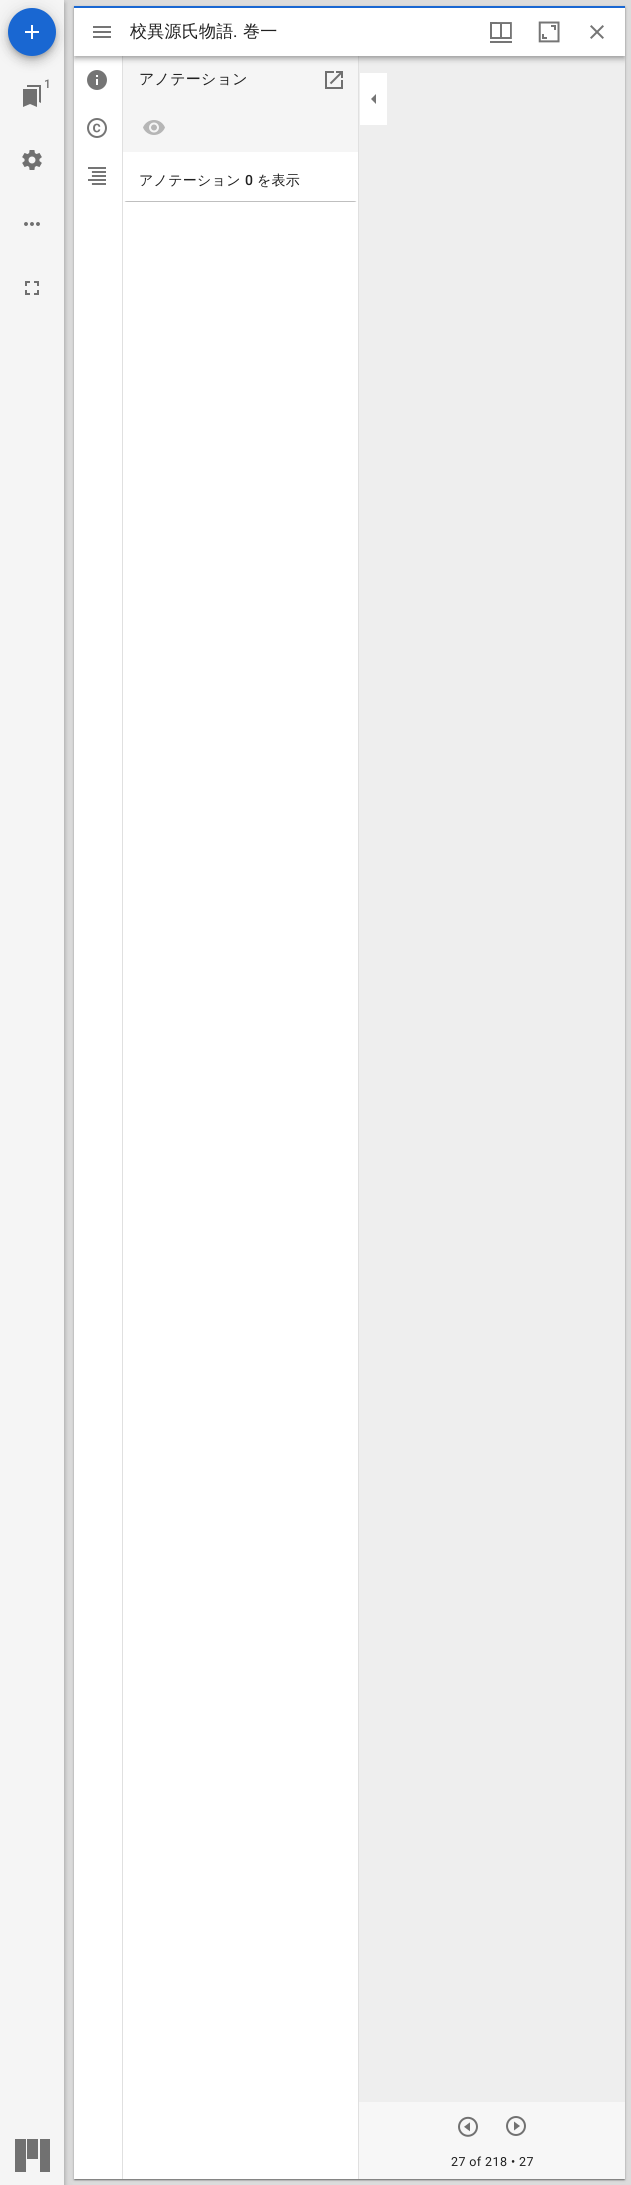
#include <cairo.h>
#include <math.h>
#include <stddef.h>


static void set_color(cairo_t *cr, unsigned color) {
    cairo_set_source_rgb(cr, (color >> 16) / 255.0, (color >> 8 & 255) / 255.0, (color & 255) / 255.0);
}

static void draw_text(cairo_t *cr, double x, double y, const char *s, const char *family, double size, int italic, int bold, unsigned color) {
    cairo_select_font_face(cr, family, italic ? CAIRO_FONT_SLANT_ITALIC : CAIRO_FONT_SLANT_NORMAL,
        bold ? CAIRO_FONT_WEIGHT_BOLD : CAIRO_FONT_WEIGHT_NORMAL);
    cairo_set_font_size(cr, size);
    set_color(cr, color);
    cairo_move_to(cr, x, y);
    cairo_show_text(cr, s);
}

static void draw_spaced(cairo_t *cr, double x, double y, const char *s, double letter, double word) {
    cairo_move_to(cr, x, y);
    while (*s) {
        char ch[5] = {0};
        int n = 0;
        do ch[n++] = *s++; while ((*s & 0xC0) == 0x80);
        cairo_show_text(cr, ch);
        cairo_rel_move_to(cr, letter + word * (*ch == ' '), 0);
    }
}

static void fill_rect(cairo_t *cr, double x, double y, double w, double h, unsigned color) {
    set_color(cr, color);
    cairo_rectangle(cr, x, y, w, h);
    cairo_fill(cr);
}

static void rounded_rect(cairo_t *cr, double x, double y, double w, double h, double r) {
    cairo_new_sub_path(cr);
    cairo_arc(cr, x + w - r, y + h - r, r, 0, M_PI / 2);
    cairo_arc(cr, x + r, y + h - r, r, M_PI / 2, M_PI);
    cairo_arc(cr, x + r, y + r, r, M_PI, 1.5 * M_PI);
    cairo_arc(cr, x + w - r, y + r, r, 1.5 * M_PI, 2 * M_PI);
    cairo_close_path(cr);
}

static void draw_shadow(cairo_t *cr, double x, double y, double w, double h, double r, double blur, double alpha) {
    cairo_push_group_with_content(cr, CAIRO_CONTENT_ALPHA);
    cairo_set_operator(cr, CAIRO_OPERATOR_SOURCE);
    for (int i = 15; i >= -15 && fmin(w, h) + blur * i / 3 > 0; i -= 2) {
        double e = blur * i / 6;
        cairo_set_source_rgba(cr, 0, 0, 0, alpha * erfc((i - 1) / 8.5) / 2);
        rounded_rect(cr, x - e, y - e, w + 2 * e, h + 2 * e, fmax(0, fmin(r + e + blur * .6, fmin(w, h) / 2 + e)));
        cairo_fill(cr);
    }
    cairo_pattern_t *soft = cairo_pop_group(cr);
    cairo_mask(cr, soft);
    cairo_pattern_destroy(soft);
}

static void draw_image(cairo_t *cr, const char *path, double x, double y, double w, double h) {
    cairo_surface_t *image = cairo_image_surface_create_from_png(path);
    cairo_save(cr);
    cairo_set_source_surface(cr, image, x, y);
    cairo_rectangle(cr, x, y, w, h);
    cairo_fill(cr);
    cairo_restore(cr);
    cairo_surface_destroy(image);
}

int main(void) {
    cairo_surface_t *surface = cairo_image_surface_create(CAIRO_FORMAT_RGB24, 631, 2185);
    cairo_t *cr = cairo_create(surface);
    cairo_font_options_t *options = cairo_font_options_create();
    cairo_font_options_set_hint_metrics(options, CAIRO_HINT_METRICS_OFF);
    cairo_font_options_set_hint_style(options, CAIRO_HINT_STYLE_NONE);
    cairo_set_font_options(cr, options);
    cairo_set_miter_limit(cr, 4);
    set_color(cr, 0xDCDCDC);
    cairo_paint(cr);
    set_color(cr, 0x000000);
    draw_shadow(cr, 75, 9, 549, 2171, 0, 0.5, 0.2);
    draw_shadow(cr, 74, 7, 551, 2173, 0, 0.5, 0.2);
    draw_shadow(cr, 74, 7, 551, 2173, 0, 1.5, 0.2);
    fill_rect(cr, 359, 56, 266, 2046, 0xEEEEEE);
    fill_rect(cr, 74, 56, 48, 2123, 0xFFFFFF);
    fill_rect(cr, 122, 56, 1, 2123, 0xE0E0E0);
    draw_image(cr, "assets/img10.png", 87, 70, 20, 20);
    fill_rect(cr, 358, 56, 1, 2123, 0xE0E0E0);
    fill_rect(cr, 123, 56, 235, 96, 0xF5F5F5);
    draw_image(cr, "assets/img13.png", 325, 71, 18, 18);
    cairo_save(cr);
    cairo_rectangle(cr, 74, 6, 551, 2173);
    cairo_clip(cr);
    set_color(cr, 0x000000);
    draw_shadow(cr, 74, 7, 551, 50, 0, 5, 0.12);
    draw_shadow(cr, 74, 10, 551, 50, 0, 2.5, 0.14);
    cairo_restore(cr);
    set_color(cr, 0x000000);
    draw_shadow(cr, 75, 9, 549, 48, 0, 2, 0.2);
    fill_rect(cr, 74, 8, 551, 48, 0xFFFFFF);
    fill_rect(cr, 74, 6, 551, 2, 0x1967D2);
    set_color(cr, 0x000000);
    draw_shadow(cr, 0, 1, 64, 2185, 0, 5, 0.12);
    draw_shadow(cr, 0, 4, 64, 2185, 0, 2.5, 0.14);
    draw_shadow(cr, 1, 3, 62, 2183, 0, 2, 0.2);
    fill_rect(cr, 0, 0, 64, 2185, 0xF5F5F5);
    set_color(cr, 0x000000);
    draw_shadow(cr, 8, 9, 48, 48, 24, 9, 0.12);
    draw_shadow(cr, 8, 14, 48, 48, 24, 5, 0.14);
    draw_shadow(cr, 9, 12, 46, 46, 23, 2.5, 0.2);
    set_color(cr, 0x1967D2);
    cairo_arc(cr, 32, 32, 24, 0, 2 * M_PI);
    cairo_fill(cr);
    draw_image(cr, "assets/img1.png", 25, 25, 14, 14);
    draw_text(cr, 44, 88, "1", "Roboto Medium", 12, 0, 0, 0x717171);
    draw_image(cr, "assets/img2.png", 23, 85, 18, 22);
    draw_image(cr, "assets/img3.png", 22, 150, 20, 20);
    draw_image(cr, "assets/img4.png", 24, 222, 16, 4);
    draw_image(cr, "assets/img5.png", 25, 281, 14, 14);
    fill_rect(cr, 15, 2139, 11, 33, 0x717171);
    fill_rect(cr, 40, 2139, 10, 33, 0x717171);
    fill_rect(cr, 27, 2139, 11, 20, 0x717171);
    draw_image(cr, "assets/img6.png", 93, 26, 18, 12);
    cairo_select_font_face(cr, "WenQuanYi Zen Hei Medium", CAIRO_FONT_SLANT_NORMAL, CAIRO_FONT_WEIGHT_NORMAL);
    cairo_set_font_size(cr, 17);
    set_color(cr, 0x202020);
    draw_spaced(cr, 130, 37, "校異源氏物語", 0.25, 0);
    cairo_select_font_face(cr, "Roboto", CAIRO_FONT_SLANT_NORMAL, CAIRO_FONT_WEIGHT_NORMAL);
    draw_spaced(cr, 233, 37, ".", 0.25, 0);
    cairo_select_font_face(cr, "WenQuanYi Zen Hei Medium", CAIRO_FONT_SLANT_NORMAL, CAIRO_FONT_WEIGHT_NORMAL);
    draw_spaced(cr, 243, 37, "巻一", 0.25, 0);
    draw_image(cr, "assets/img7.png", 490, 22, 22, 21);
    draw_image(cr, "assets/img8.png", 538, 21, 22, 22);
    draw_image(cr, "assets/img9.png", 590, 25, 14, 14);
    draw_image(cr, "assets/img11.png", 87, 118, 20, 20);
    draw_image(cr, "assets/img12.png", 88, 167, 18, 18);
    fill_rect(cr, 123, 152, 235, 2027, 0xFFFFFF);
    cairo_set_font_size(cr, 15);
    set_color(cr, 0x202020);
    draw_spaced(cr, 139, 84, "アノテーション", 0.25, 0);
    draw_image(cr, "assets/img14.png", 143, 120, 22, 15);
    cairo_save(cr);
    rounded_rect(cr, 123, 152, 235, 50, 4);
    cairo_clip(cr);
    fill_rect(cr, 123, 201, 235, 1, 0xBFBFBF);
    cairo_restore(cr);
    cairo_set_font_size(cr, 14);
    draw_spaced(cr, 139, 185, "アノテーション", 0.25, 0);
    cairo_select_font_face(cr, "Roboto Medium", CAIRO_FONT_SLANT_NORMAL, CAIRO_FONT_WEIGHT_NORMAL);
    draw_spaced(cr, 245, 185, "0", 0.25, 0);
    cairo_select_font_face(cr, "WenQuanYi Zen Hei Medium", CAIRO_FONT_SLANT_NORMAL, CAIRO_FONT_WEIGHT_NORMAL);
    draw_spaced(cr, 257, 185, "を表示", 0.25, 0);
    fill_rect(cr, 360, 73, 27, 52, 0xFFFFFF);
    set_color(cr, 0x757575);
    cairo_new_path(cr);
    cairo_move_to(cr, 376, 94);
    cairo_line_to(cr, 371, 99);
    cairo_line_to(cr, 376, 104);
    cairo_close_path(cr);
    cairo_fill(cr);
    fill_rect(cr, 359, 2102, 266, 77, 0xF7F7F7);
    draw_image(cr, "assets/img15.png", 458, 2116, 20, 21);
    draw_image(cr, "assets/img16.png", 506, 2116, 20, 20);
    cairo_select_font_face(cr, "Roboto", CAIRO_FONT_SLANT_NORMAL, CAIRO_FONT_WEIGHT_NORMAL);
    cairo_set_font_size(cr, 12.5);
    set_color(cr, 0x202020);
    draw_spaced(cr, 451, 2166, "27 of 218 • 27", 0.4, 0);
    cairo_surface_write_to_png(surface, "output.png");
    cairo_font_options_destroy(options);
    cairo_destroy(cr);
    cairo_surface_destroy(surface);
    return 0;
}
